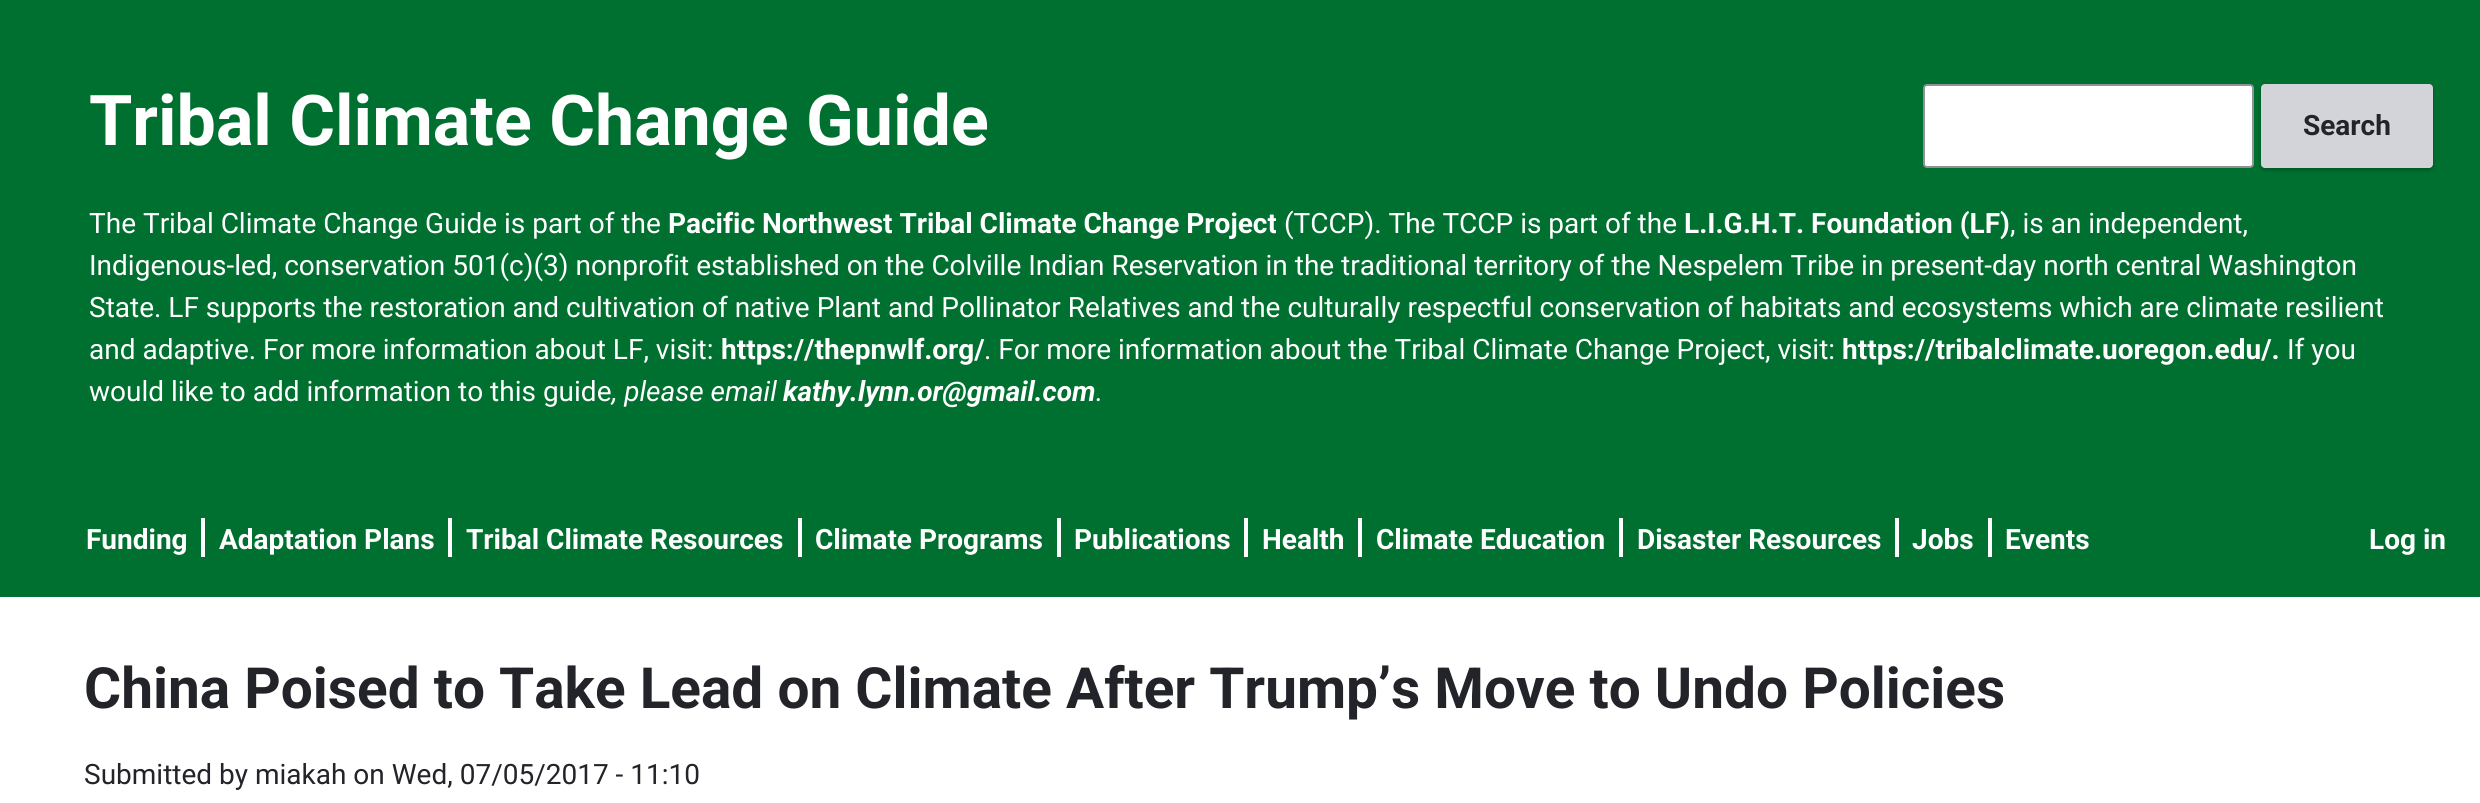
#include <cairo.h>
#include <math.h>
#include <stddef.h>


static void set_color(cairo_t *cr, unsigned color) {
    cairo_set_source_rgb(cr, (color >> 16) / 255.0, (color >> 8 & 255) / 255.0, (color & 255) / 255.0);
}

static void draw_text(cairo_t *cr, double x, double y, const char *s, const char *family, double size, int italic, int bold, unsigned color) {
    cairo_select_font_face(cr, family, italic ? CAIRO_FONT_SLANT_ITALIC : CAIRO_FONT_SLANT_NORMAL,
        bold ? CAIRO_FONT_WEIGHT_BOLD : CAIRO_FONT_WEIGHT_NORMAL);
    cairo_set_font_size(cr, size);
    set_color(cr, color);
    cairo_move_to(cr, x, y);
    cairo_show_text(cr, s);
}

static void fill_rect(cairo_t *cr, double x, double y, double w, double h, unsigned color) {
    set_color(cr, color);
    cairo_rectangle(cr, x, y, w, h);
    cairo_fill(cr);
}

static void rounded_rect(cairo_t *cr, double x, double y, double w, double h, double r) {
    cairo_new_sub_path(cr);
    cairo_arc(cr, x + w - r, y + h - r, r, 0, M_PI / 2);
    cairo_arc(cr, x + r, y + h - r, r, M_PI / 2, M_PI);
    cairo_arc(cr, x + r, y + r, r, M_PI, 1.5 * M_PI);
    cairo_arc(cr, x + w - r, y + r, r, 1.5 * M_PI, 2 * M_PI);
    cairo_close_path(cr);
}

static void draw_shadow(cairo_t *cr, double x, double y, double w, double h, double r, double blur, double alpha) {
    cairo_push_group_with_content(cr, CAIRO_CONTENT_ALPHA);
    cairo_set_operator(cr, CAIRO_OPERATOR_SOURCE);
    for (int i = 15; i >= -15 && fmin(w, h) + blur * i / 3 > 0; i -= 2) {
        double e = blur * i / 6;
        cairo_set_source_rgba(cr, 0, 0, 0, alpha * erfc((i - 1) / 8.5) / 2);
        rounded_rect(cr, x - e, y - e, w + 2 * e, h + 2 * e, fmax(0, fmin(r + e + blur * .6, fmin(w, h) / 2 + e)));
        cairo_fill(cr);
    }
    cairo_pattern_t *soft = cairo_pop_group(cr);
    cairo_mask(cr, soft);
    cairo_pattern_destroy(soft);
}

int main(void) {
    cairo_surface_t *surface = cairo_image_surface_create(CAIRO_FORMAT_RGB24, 2480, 803);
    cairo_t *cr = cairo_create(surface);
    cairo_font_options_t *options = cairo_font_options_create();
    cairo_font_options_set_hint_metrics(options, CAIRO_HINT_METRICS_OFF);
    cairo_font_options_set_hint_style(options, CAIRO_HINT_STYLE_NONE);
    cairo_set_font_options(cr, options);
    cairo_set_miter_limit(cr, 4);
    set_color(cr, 0xFFFFFF);
    cairo_paint(cr);
    fill_rect(cr, 0, 0, 2480, 597, 0x007030);
    draw_text(cr, 89, 145, "Tribal Climate Change Guide", "Roboto", 70, 0, 1, 0xFFFFFF);
    rounded_rect(cr, 1924, 85, 329, 82, 3);
    cairo_fill_preserve(cr);
    set_color(cr, 0x919297);
    cairo_stroke(cr);
    set_color(cr, 0x000000);
    draw_shadow(cr, 2261, 86, 172, 84, 4, 2, 0.25);
    set_color(cr, 0xD3D4D9);
    rounded_rect(cr, 2261, 84, 172, 84, 4);
    cairo_fill(cr);
    draw_text(cr, 2303, 135, "Search", "Roboto", 28, 0, 1, 0x232429);
    draw_text(cr, 89, 233, "The Tribal Climate Change Guide is part of the", "Roboto", 28, 0, 0, 0xFFFFFF);
    draw_text(cr, 668, 233, "Pacific Northwest Tribal Climate Change Project", "Roboto", 28, 0, 1, 0xFFFFFF);
    draw_text(cr, 1284, 233, "(TCCP). The TCCP is part of the", "Roboto", 28, 0, 0, 0xFFFFFF);
    draw_text(cr, 1684, 233, "L.I.G.H.T. Foundation (LF)", "Roboto", 28, 0, 1, 0xFFFFFF);
    draw_text(cr, 2010, 233, ", is an independent,", "Roboto", 28, 0, 0, 0xFFFFFF);
    draw_text(cr, 89, 275, "Indigenous-led, conservation 501(c)(3) nonprofit established on the Colville Indian Reservation in the traditional territory of the Nespelem Tribe in present-day north central Washington", "Roboto", 28, 0, 0, 0xFFFFFF);
    draw_text(cr, 89, 317, "State. LF supports the restoration and cultivation of native Plant and Pollinator Relatives and the culturally respectful conservation of habitats and ecosystems which are climate resilient", "Roboto", 28, 0, 0, 0xFFFFFF);
    draw_text(cr, 89, 359, "and adaptive. For more information about LF, visit:", "Roboto", 28, 0, 0, 0xFFFFFF);
    draw_text(cr, 721, 359, "https://thepnwlf.org/", "Roboto", 28, 0, 1, 0xFFFFFF);
    draw_text(cr, 984, 359, ". For more information about the Tribal Climate Change Project, visit:", "Roboto", 28, 0, 0, 0xFFFFFF);
    draw_text(cr, 1842, 359, "https://tribalclimate.uoregon.edu/.", "Roboto", 28, 0, 1, 0xFFFFFF);
    draw_text(cr, 2287, 359, "If you", "Roboto", 28, 0, 0, 0xFFFFFF);
    draw_text(cr, 89, 401, "would like to add information to this guide", "Roboto", 28, 0, 0, 0xFFFFFF);
    draw_text(cr, 612, 401, ", please email", "Roboto", 28, 1, 0, 0xFFFFFF);
    draw_text(cr, 783, 401, "kathy.lynn.or@gmail.com", "Roboto", 28, 1, 1, 0xFFFFFF);
    draw_text(cr, 1096, 401, ".", "Roboto", 28, 1, 0, 0xFFFFFF);
    draw_text(cr, 86, 549, "Funding", "Roboto", 28, 0, 1, 0xFFFFFF);
    draw_text(cr, 219, 549, "Adaptation Plans", "Roboto", 28, 0, 1, 0xFFFFFF);
    fill_rect(cr, 201, 518, 4, 39, 0xFFFFFF);
    draw_text(cr, 466, 549, "Tribal Climate Resources", "Roboto", 28, 0, 1, 0xFFFFFF);
    fill_rect(cr, 448, 518, 4, 39, 0xFFFFFF);
    draw_text(cr, 815, 549, "Climate Programs", "Roboto", 28, 0, 1, 0xFFFFFF);
    fill_rect(cr, 798, 518, 4, 39, 0xFFFFFF);
    draw_text(cr, 1074, 549, "Publications", "Roboto", 28, 0, 1, 0xFFFFFF);
    fill_rect(cr, 1057, 518, 4, 39, 0xFFFFFF);
    draw_text(cr, 1262, 549, "Health", "Roboto", 28, 0, 1, 0xFFFFFF);
    fill_rect(cr, 1244, 518, 4, 39, 0xFFFFFF);
    draw_text(cr, 1376, 549, "Climate Education", "Roboto", 28, 0, 1, 0xFFFFFF);
    fill_rect(cr, 1358, 518, 4, 39, 0xFFFFFF);
    draw_text(cr, 1637, 549, "Disaster Resources", "Roboto", 28, 0, 1, 0xFFFFFF);
    fill_rect(cr, 1619, 518, 4, 39, 0xFFFFFF);
    draw_text(cr, 1912, 549, "Jobs", "Roboto", 28, 0, 1, 0xFFFFFF);
    fill_rect(cr, 1895, 518, 4, 39, 0xFFFFFF);
    draw_text(cr, 2005, 549, "Events", "Roboto", 28, 0, 1, 0xFFFFFF);
    fill_rect(cr, 1988, 518, 4, 39, 0xFFFFFF);
    draw_text(cr, 2369, 549, "Log in", "Roboto", 28, 0, 1, 0xFFFFFF);
    draw_text(cr, 84, 708, "China Poised to Take Lead on Climate After Trump’s Move to Undo Policies", "Roboto", 56.75, 0, 1, 0x232429);
    draw_text(cr, 84, 784, "Submitted by miakah on Wed, 07/05/2017 - 11:10", "Roboto", 28, 0, 0, 0x232429);
    cairo_surface_write_to_png(surface, "output.png");
    cairo_font_options_destroy(options);
    cairo_destroy(cr);
    cairo_surface_destroy(surface);
    return 0;
}
